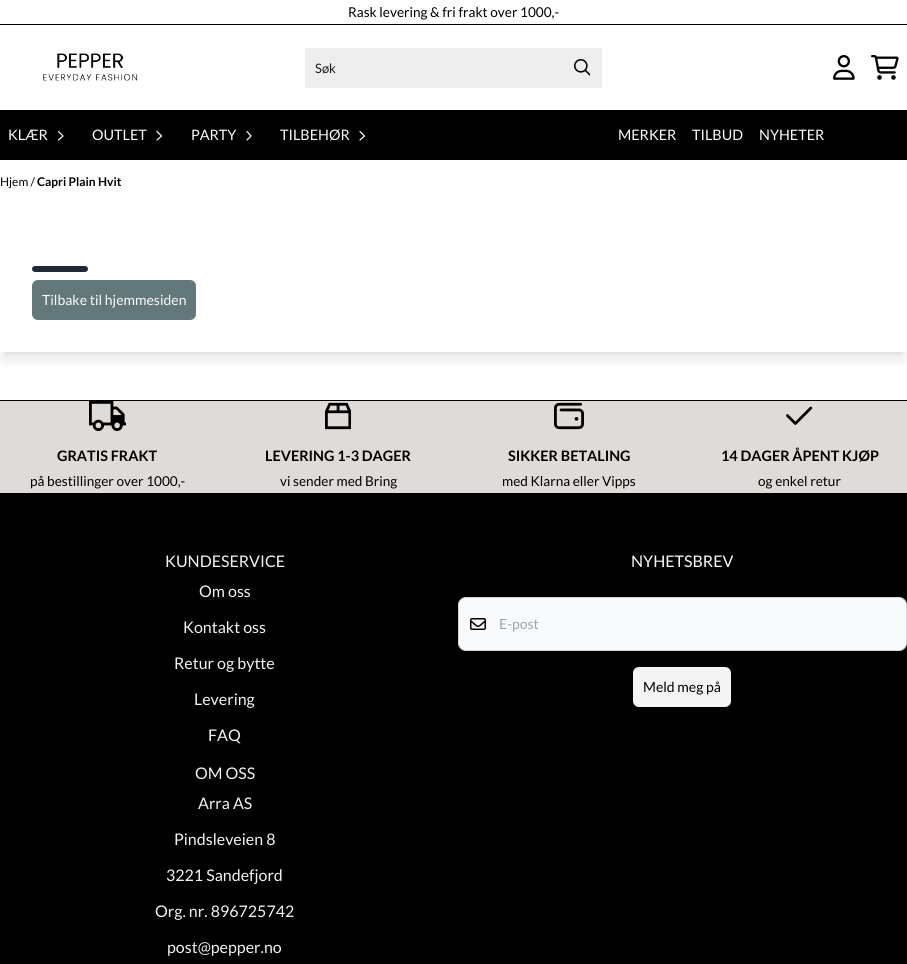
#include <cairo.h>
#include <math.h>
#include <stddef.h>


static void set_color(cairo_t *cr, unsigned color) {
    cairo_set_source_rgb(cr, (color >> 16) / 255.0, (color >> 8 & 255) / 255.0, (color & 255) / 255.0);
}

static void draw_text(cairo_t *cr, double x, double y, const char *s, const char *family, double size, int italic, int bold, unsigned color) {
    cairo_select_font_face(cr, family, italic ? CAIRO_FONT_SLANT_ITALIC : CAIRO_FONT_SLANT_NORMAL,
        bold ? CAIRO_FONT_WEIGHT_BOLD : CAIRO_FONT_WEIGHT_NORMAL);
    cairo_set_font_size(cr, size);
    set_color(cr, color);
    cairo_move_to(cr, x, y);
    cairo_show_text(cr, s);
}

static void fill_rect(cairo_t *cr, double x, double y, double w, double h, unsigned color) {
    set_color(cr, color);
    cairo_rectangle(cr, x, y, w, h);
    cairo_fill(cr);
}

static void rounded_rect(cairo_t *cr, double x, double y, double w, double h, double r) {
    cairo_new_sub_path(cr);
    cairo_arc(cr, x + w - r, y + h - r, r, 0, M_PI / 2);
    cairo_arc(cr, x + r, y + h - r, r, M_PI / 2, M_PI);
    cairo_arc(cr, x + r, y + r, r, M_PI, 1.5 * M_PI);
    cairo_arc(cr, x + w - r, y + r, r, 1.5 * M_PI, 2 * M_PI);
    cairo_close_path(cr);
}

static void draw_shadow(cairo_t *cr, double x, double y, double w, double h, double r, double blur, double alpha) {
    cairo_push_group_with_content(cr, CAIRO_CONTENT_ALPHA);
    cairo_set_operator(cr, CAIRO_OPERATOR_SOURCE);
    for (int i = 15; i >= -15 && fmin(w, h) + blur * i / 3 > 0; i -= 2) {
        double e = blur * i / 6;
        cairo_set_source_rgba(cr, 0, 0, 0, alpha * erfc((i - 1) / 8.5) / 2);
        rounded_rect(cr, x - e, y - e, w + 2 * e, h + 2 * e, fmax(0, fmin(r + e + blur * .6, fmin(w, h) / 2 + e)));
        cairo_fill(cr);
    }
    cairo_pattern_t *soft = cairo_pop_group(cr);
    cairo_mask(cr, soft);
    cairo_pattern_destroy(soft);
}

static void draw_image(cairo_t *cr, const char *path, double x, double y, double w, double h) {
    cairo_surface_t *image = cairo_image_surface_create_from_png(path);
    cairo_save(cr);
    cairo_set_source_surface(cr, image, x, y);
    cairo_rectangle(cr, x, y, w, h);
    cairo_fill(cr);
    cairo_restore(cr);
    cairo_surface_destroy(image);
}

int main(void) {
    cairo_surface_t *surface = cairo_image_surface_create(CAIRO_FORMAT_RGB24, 907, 964);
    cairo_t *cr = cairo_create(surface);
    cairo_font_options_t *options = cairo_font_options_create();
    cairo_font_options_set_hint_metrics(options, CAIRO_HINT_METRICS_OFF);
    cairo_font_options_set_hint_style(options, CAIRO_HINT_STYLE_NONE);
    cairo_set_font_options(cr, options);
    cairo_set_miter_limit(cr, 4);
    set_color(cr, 0xFFFFFF);
    cairo_paint(cr);
    fill_rect(cr, 0, 24, 907, 1, 0x000000);
    draw_text(cr, 348, 17, "Rask levering & fri frakt over 1000,-", "Lato", 13.6, 0, 0, 0x000000);
    draw_image(cr, "assets/img1.png", 43, 53, 95, 28);
    fill_rect(cr, 305, 48, 297, 40, 0xEEEEEE);
    draw_text(cr, 315, 73, "Søk", "Lato", 13, 0, 0, 0x1B1B1B);
    draw_image(cr, "assets/img2.png", 574, 59, 16, 17);
    draw_image(cr, "assets/img3.png", 833, 55, 22, 25);
    draw_image(cr, "assets/img4.png", 871, 55, 28, 25);
    fill_rect(cr, 0, 110, 907, 50, 0x000000);
    draw_text(cr, 8, 140, "KLÆR", "Lato", 14.4, 0, 0, 0xFDFAFA);
    cairo_new_path(cr);
    cairo_move_to(cr, 58.5, 131.5);
    cairo_line_to(cr, 63, 136);
    cairo_line_to(cr, 58.5, 140);
    set_color(cr, 0xFFFFFF);
    cairo_set_line_width(cr, 1.2);
    cairo_set_line_cap(cr, CAIRO_LINE_CAP_ROUND);
    cairo_set_line_join(cr, CAIRO_LINE_JOIN_ROUND);
    cairo_stroke(cr);
    draw_text(cr, 92, 140, "OUTLET", "Lato", 14.4, 0, 0, 0xFDFAFA);
    cairo_new_path(cr);
    cairo_move_to(cr, 157, 131.5);
    cairo_line_to(cr, 161.5, 136);
    cairo_line_to(cr, 157, 140);
    set_color(cr, 0xFFFFFF);
    cairo_stroke(cr);
    draw_text(cr, 191, 140, "PARTY", "Lato", 14.4, 0, 0, 0xFDFAFA);
    cairo_new_path(cr);
    cairo_move_to(cr, 247, 131.5);
    cairo_line_to(cr, 251, 136);
    cairo_line_to(cr, 247, 140);
    set_color(cr, 0xFFFFFF);
    cairo_stroke(cr);
    draw_text(cr, 280, 140, "TILBEHØR", "Lato", 14.4, 0, 0, 0xFDFAFA);
    cairo_new_path(cr);
    cairo_move_to(cr, 360, 131.5);
    cairo_line_to(cr, 364.5, 136);
    cairo_line_to(cr, 360, 140);
    set_color(cr, 0xFFFFFF);
    cairo_stroke(cr);
    draw_text(cr, 618, 140, "MERKER", "Lato", 14.4, 0, 0, 0xFDFAFA);
    draw_text(cr, 692, 140, "TILBUD", "Lato", 14.4, 0, 0, 0xFDFAFA);
    draw_text(cr, 759, 140, "NYHETER", "Lato", 14.4, 0, 0, 0xFDFAFA);
    draw_text(cr, 0, 186, "Hjem /", "Lato", 12, 0, 0, 0x000000);
    draw_text(cr, 37, 186, "Capri Plain Hvit", "Lato", 12, 0, 1, 0x000000);
    cairo_save(cr);
    cairo_rectangle(cr, 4, 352, 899, 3);
    cairo_clip(cr);
    set_color(cr, 0x000000);
    draw_shadow(cr, 4, 240, 899, 112, 0, 3, 0.1);
    cairo_restore(cr);
    cairo_save(cr);
    cairo_rectangle(cr, 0, 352, 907, 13);
    cairo_clip(cr);
    set_color(cr, 0x000000);
    draw_shadow(cr, 3, 245, 901, 114, 0, 7.5, 0.1);
    cairo_restore(cr);
    set_color(cr, 0x1F2937);
    rounded_rect(cr, 32, 266, 56, 6, 3);
    cairo_fill(cr);
    set_color(cr, 0x62787A);
    rounded_rect(cr, 32, 280, 164, 40, 6);
    cairo_fill(cr);
    draw_text(cr, 42, 305, "Tilbake til hjemmesiden", "Lato", 14, 0, 0, 0xFDFAFA);
    fill_rect(cr, 0, 401, 907, 92, 0xDEDBD9);
    fill_rect(cr, 0, 400, 907, 1, 0x000000);
    draw_image(cr, "assets/img5.png", 89, 401, 37, 30);
    draw_text(cr, 57, 461, "GRATIS FRAKT", "Lato", 14.4, 0, 1, 0x000000);
    draw_text(cr, 30, 486, "på bestillinger over 1000,-", "Lato", 13.6, 0, 0, 0x000000);
    draw_image(cr, "assets/img6.png", 325, 402, 26, 28);
    draw_text(cr, 265, 461, "LEVERING 1-3 DAGER", "Lato", 14.4, 0, 1, 0x000000);
    draw_text(cr, 280, 486, "vi sender med Bring", "Lato", 13.6, 0, 0, 0x000000);
    draw_image(cr, "assets/img7.png", 554, 402, 30, 28);
    draw_text(cr, 508, 461, "SIKKER BETALING", "Lato", 14.4, 0, 1, 0x000000);
    draw_text(cr, 502, 486, "med Klarna eller Vipps", "Lato", 13.6, 0, 0, 0x000000);
    draw_image(cr, "assets/img8.png", 786, 406, 27, 19);
    draw_text(cr, 721, 461, "14 DAGER ÅPENT KJØP", "Lato", 14.4, 0, 1, 0x000000);
    draw_text(cr, 758, 486, "og enkel retur", "Lato", 13.6, 0, 0, 0x000000);
    fill_rect(cr, 0, 493, 907, 471, 0x000000);
    draw_text(cr, 165, 567, "KUNDESERVICE", "Lato", 16, 0, 0, 0xF7F2F2);
    draw_text(cr, 199, 597, "Om oss", "Lato", 16, 0, 0, 0xF7F2F2);
    draw_text(cr, 183, 633, "Kontakt oss", "Lato", 16, 0, 0, 0xF7F2F2);
    draw_text(cr, 174, 669, "Retur og bytte", "Lato", 16, 0, 0, 0xF7F2F2);
    draw_text(cr, 194, 705, "Levering", "Lato", 16, 0, 0, 0xF7F2F2);
    draw_text(cr, 208, 741, "FAQ", "Lato", 16, 0, 0, 0xF7F2F2);
    draw_text(cr, 631, 567, "NYHETSBREV", "Lato", 16, 0, 0, 0xFDFAFA);
    set_color(cr, 0xF9FAFB);
    rounded_rect(cr, 458.5, 597.5, 448, 53, 7.5);
    cairo_fill_preserve(cr);
    set_color(cr, 0xD1D5DB);
    cairo_set_line_width(cr, 1);
    cairo_set_line_cap(cr, CAIRO_LINE_CAP_BUTT);
    cairo_set_line_join(cr, CAIRO_LINE_JOIN_MITER);
    cairo_stroke(cr);
    draw_image(cr, "assets/img9.png", 470, 618, 16, 12);
    draw_text(cr, 499, 629, "E-post", "Lato", 14, 0, 0, 0x9CA3AF);
    set_color(cr, 0xF4F4F5);
    rounded_rect(cr, 633, 667, 98, 40, 6);
    cairo_fill(cr);
    draw_text(cr, 643, 692, "Meld meg på", "Lato", 14, 0, 0, 0x000000);
    draw_text(cr, 195, 779, "OM OSS", "Lato", 16, 0, 0, 0xF7F2F2);
    draw_text(cr, 198, 809, "Arra AS", "Lato", 16, 0, 0, 0xF7F2F2);
    draw_text(cr, 174, 845, "Pindsleveien 8", "Lato", 16, 0, 0, 0xF7F2F2);
    draw_text(cr, 166, 881, "3221 Sandefjord", "Lato", 16, 0, 0, 0xF7F2F2);
    draw_text(cr, 155, 917, "Org. nr. 896725742", "Lato", 16, 0, 0, 0xF7F2F2);
    draw_text(cr, 167, 953, "post@pepper.no", "Lato", 16, 0, 0, 0xF7F2F2);
    cairo_surface_write_to_png(surface, "output.png");
    cairo_font_options_destroy(options);
    cairo_destroy(cr);
    cairo_surface_destroy(surface);
    return 0;
}
